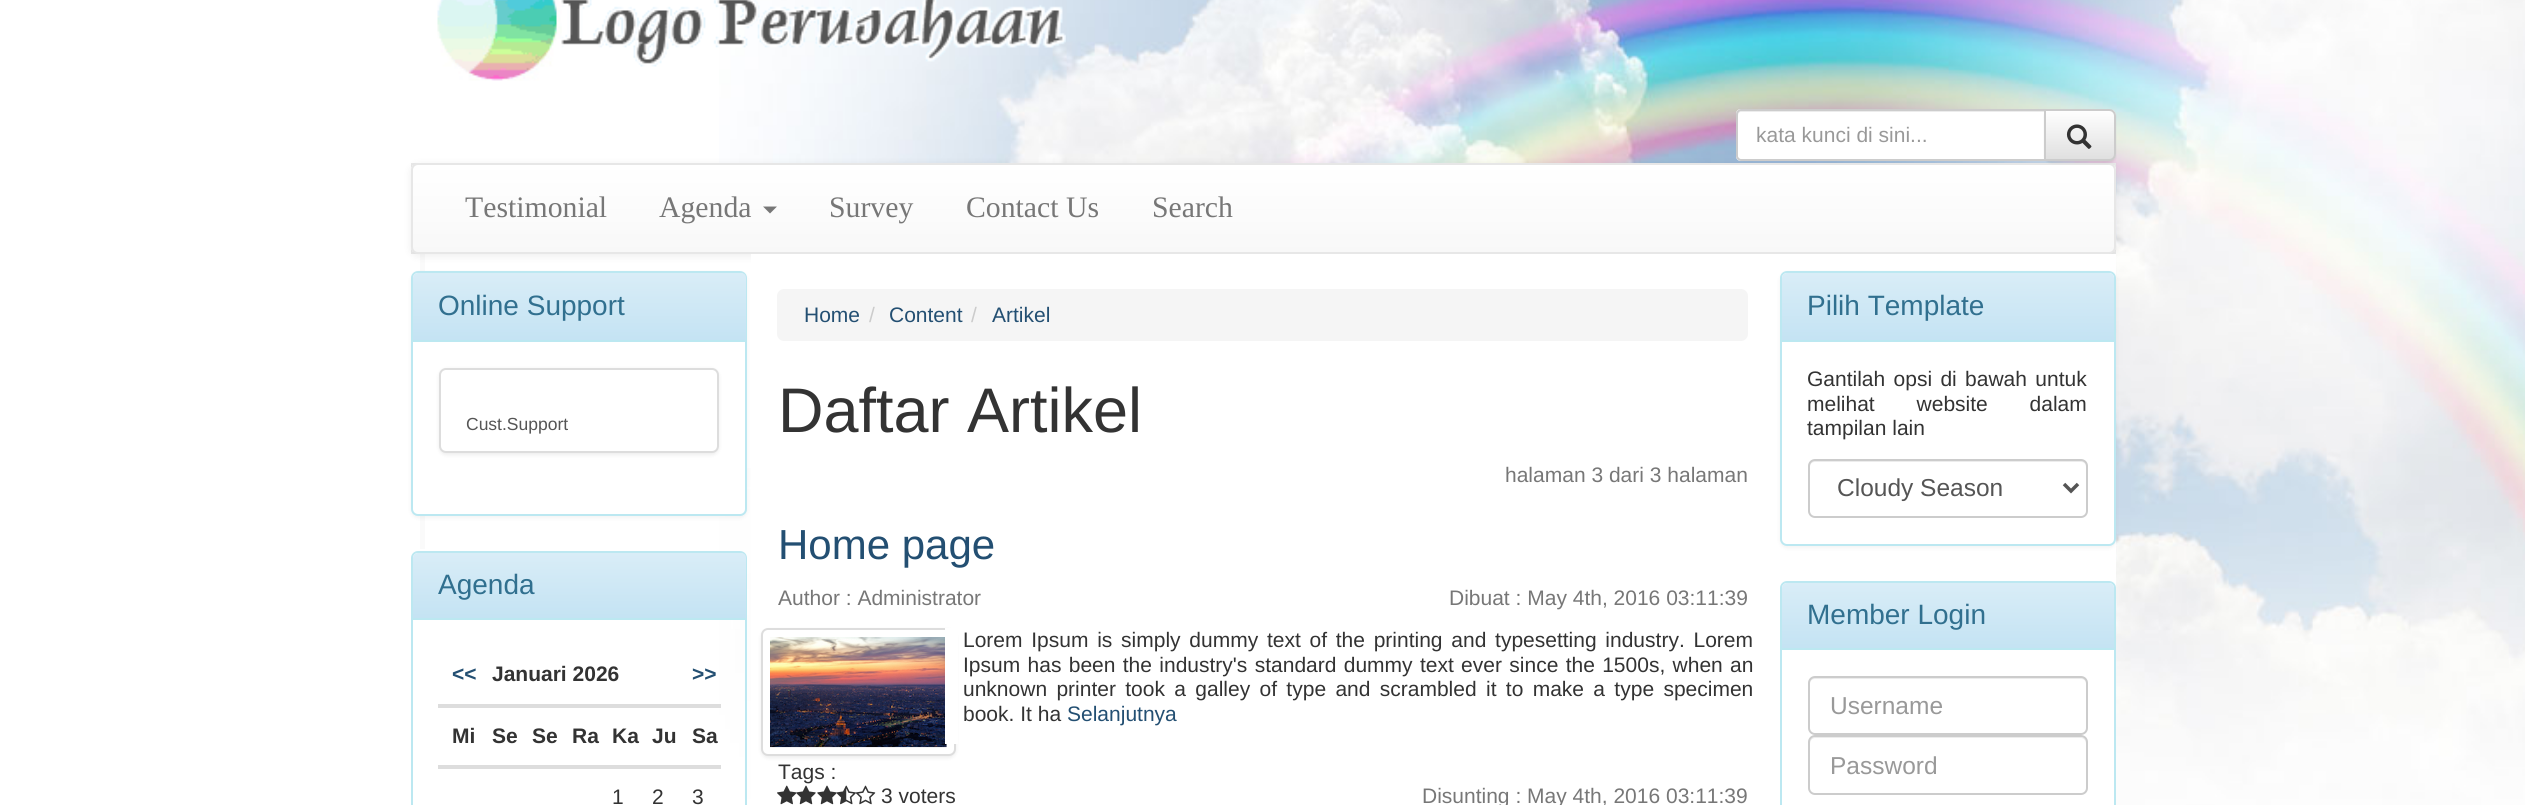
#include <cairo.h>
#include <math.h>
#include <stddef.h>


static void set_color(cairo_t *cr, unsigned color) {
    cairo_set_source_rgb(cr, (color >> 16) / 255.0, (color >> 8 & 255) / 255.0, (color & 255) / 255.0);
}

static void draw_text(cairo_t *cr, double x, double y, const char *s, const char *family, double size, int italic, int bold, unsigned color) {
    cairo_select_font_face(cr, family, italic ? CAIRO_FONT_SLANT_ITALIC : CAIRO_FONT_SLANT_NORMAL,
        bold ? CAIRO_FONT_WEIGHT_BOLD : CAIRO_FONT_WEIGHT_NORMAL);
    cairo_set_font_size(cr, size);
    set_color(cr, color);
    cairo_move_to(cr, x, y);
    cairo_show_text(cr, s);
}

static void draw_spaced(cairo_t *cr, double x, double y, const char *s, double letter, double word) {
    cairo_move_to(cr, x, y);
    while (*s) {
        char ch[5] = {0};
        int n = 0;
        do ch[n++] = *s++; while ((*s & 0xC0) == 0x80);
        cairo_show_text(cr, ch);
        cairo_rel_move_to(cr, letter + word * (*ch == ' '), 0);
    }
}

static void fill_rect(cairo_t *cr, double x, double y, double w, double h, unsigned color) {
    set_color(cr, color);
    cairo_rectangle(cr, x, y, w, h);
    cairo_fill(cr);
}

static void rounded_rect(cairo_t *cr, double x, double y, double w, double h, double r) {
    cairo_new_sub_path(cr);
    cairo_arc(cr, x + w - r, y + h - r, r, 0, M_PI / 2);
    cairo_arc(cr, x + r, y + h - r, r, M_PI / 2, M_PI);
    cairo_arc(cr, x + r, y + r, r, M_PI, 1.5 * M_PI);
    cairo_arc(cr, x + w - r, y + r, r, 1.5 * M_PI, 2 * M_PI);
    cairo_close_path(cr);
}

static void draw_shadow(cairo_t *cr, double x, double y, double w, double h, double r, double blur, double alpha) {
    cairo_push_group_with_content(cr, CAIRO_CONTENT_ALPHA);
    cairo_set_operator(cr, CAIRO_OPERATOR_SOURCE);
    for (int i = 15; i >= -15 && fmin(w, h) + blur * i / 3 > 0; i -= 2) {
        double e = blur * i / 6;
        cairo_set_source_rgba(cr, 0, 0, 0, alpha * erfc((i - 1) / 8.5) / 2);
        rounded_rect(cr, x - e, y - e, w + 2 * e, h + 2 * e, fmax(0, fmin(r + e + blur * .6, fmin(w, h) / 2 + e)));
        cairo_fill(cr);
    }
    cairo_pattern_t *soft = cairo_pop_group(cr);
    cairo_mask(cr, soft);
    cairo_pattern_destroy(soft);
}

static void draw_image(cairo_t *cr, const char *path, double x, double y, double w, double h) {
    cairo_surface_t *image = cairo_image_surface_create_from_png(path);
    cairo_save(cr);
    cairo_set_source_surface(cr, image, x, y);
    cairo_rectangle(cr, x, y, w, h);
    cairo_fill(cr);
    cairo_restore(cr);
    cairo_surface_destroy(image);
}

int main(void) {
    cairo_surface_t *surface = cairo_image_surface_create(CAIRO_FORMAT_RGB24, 2525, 805);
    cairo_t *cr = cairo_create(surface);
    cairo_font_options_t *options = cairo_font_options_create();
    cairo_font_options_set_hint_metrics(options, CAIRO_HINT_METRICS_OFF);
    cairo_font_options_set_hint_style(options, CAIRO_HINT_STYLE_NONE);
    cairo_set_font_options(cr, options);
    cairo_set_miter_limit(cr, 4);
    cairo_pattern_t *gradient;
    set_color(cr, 0xFFFFFF);
    cairo_paint(cr);
    draw_image(cr, "assets/img1.png", 719, 0, 1806, 805);
    draw_image(cr, "assets/img2.png", 437, 0, 629, 81);
    fill_rect(cr, 411, 163, 1705, 91, 0xE9E9E9);
    fill_rect(cr, 719, 254, 32, 214, 0xFFFFFF);
    fill_rect(cr, 420, 254, 5, 295, 0xFAFAFA);
    set_color(cr, 0x000000);
    draw_shadow(cr, 411, 165, 1705, 91, 7, 4.5, 0.07);
    set_color(cr, 0xFFFFFF);
    cairo_new_path(cr);
    cairo_move_to(cr, 1741, 109);
    cairo_line_to(cr, 2046, 109);
    cairo_line_to(cr, 2046, 161);
    cairo_line_to(cr, 1741, 161);
    cairo_curve_to(cr, 1738, 161, 1736, 159, 1736, 156);
    cairo_line_to(cr, 1736, 114);
    cairo_curve_to(cr, 1736, 111, 1738, 109, 1741, 109);
    cairo_close_path(cr);
    cairo_fill(cr);
    set_color(cr, 0xECECEC);
    cairo_new_path(cr);
    cairo_move_to(cr, 1741, 112);
    cairo_line_to(cr, 2044, 112);
    cairo_line_to(cr, 2044, 110);
    cairo_line_to(cr, 1740, 110);
    cairo_curve_to(cr, 1738, 111, 1738, 114, 1738, 116);
    cairo_curve_to(cr, 1738, 114, 1739, 112, 1741, 112);
    cairo_close_path(cr);
    cairo_fill(cr);
    cairo_new_path(cr);
    cairo_move_to(cr, 1741, 110);
    cairo_line_to(cr, 2045, 110);
    cairo_line_to(cr, 2045, 160);
    cairo_line_to(cr, 1741, 160);
    cairo_curve_to(cr, 1739, 160, 1737, 158, 1737, 156);
    cairo_line_to(cr, 1737, 114);
    cairo_curve_to(cr, 1737, 112, 1739, 110, 1741, 110);
    cairo_close_path(cr);
    set_color(cr, 0xCCCCCC);
    cairo_stroke(cr);
    draw_text(cr, 1756, 142, "kata kunci di sini...", "Liberation Sans", 21, 0, 0, 0x999999);
    cairo_save(cr);
    rounded_rect(cr, 411, 163, 1705, 91, 7);
    cairo_clip(cr);
    gradient = cairo_pattern_create_linear(1264, 164, 1264, 252);
    cairo_pattern_add_color_stop_rgba(gradient, 0, 1, 1, 1, 1);
    cairo_pattern_add_color_stop_rgba(gradient, 1, 0.973, 0.973, 0.973, 1);
    cairo_set_source(cr, gradient);
    cairo_pattern_destroy(gradient);
    cairo_rectangle(cr, 411, 165, 1705, 87);
    cairo_fill(cr);
    cairo_restore(cr);
    rounded_rect(cr, 412, 164, 1703, 89, 6);
    set_color(cr, 0xE7E7E7);
    cairo_stroke(cr);
    set_color(cr, 0x000000);
    draw_shadow(cr, 2044, 110, 72, 53, 7, 1, 0.07);
    cairo_save(cr);
    cairo_new_path(cr);
    cairo_move_to(cr, 2044, 109);
    cairo_line_to(cr, 2109, 109);
    cairo_curve_to(cr, 2113, 109, 2116, 112, 2116, 116);
    cairo_line_to(cr, 2116, 154);
    cairo_curve_to(cr, 2116, 158, 2113, 161, 2109, 161);
    cairo_line_to(cr, 2044, 161);
    cairo_close_path(cr);
    cairo_clip(cr);
    gradient = cairo_pattern_create_linear(2080, 110, 2080, 159);
    cairo_pattern_add_color_stop_rgba(gradient, 0, 1, 1, 1, 1);
    cairo_pattern_add_color_stop_rgba(gradient, 1, 0.878, 0.878, 0.878, 1);
    cairo_set_source(cr, gradient);
    cairo_pattern_destroy(gradient);
    cairo_rectangle(cr, 2046, 110, 70, 49);
    cairo_fill(cr);
    cairo_restore(cr);
    cairo_new_path(cr);
    cairo_move_to(cr, 2045, 110);
    cairo_line_to(cr, 2109, 110);
    cairo_curve_to(cr, 2112.5, 110, 2115, 112.5, 2115, 116);
    cairo_line_to(cr, 2115, 154);
    cairo_curve_to(cr, 2115, 157.5, 2112.5, 160, 2109, 160);
    cairo_line_to(cr, 2045, 160);
    cairo_close_path(cr);
    set_color(cr, 0xCCCCCC);
    cairo_stroke(cr);
    draw_image(cr, "assets/img3.png", 2066, 124, 26, 25);
    draw_text(cr, 465, 217, "Testimonial", "Liberation Serif", 29.75, 0, 0, 0x777777);
    draw_text(cr, 659, 217, "Agenda", "Liberation Serif", 29.75, 0, 0, 0x777777);
    cairo_new_path(cr);
    cairo_move_to(cr, 763, 206.5);
    cairo_line_to(cr, 777, 206.5);
    cairo_line_to(cr, 770, 213.5);
    cairo_close_path(cr);
    cairo_fill(cr);
    draw_text(cr, 829, 217, "Survey", "Liberation Serif", 29.75, 0, 0, 0x777777);
    draw_text(cr, 966, 217, "Contact Us", "Liberation Serif", 29.75, 0, 0, 0x777777);
    draw_text(cr, 1152, 217, "Search", "Liberation Serif", 29.75, 0, 0, 0x777777);
    fill_rect(cr, 751, 254, 1365, 551, 0xFFFFFF);
    set_color(cr, 0x000000);
    draw_shadow(cr, 411, 273, 336, 245, 7, 2, 0.05);
    set_color(cr, 0xFFFFFF);
    rounded_rect(cr, 412, 272, 334, 243, 6);
    cairo_fill_preserve(cr);
    set_color(cr, 0xBCE8F1);
    cairo_stroke(cr);
    gradient = cairo_pattern_create_linear(579, 273, 579, 340);
    cairo_pattern_add_color_stop_rgba(gradient, 0, 0.851, 0.929, 0.969, 1);
    cairo_pattern_add_color_stop_rgba(gradient, 1, 0.769, 0.89, 0.953, 1);
    cairo_set_source(cr, gradient);
    cairo_pattern_destroy(gradient);
    cairo_new_path(cr);
    cairo_move_to(cr, 418, 273);
    cairo_line_to(cr, 741, 273);
    cairo_curve_to(cr, 744, 273, 746, 275, 746, 278);
    cairo_line_to(cr, 746, 340);
    cairo_line_to(cr, 413, 340);
    cairo_line_to(cr, 413, 278);
    cairo_curve_to(cr, 413, 275, 415, 273, 418, 273);
    cairo_close_path(cr);
    cairo_fill(cr);
    fill_rect(cr, 413, 340, 333, 2, 0xBCE8F1);
    draw_text(cr, 438, 315, "Online Support", "Liberation Sans", 28, 0, 0, 0x31708F);
    set_color(cr, 0x000000);
    draw_shadow(cr, 439, 369, 280, 86, 7, 2, 0.07);
    set_color(cr, 0xFFFFFF);
    rounded_rect(cr, 440, 369, 278, 83, 6);
    cairo_fill_preserve(cr);
    set_color(cr, 0xDDDDDD);
    cairo_stroke(cr);
    draw_text(cr, 466, 430, "Cust.Support", "Liberation Sans", 17.5, 0, 0, 0x555555);
    rounded_rect(cr, 412, 552, 334, 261, 6);
    set_color(cr, 0xBCE8F1);
    cairo_stroke(cr);
    gradient = cairo_pattern_create_linear(579, 553, 579, 618);
    cairo_pattern_add_color_stop_rgba(gradient, 0, 0.851, 0.929, 0.969, 1);
    cairo_pattern_add_color_stop_rgba(gradient, 1, 0.769, 0.89, 0.953, 1);
    cairo_set_source(cr, gradient);
    cairo_pattern_destroy(gradient);
    cairo_new_path(cr);
    cairo_move_to(cr, 418, 553);
    cairo_line_to(cr, 741, 553);
    cairo_curve_to(cr, 744, 553, 746, 555, 746, 558);
    cairo_line_to(cr, 746, 618);
    cairo_line_to(cr, 413, 618);
    cairo_line_to(cr, 413, 558);
    cairo_curve_to(cr, 413, 555, 415, 553, 418, 553);
    cairo_close_path(cr);
    cairo_fill(cr);
    fill_rect(cr, 413, 618, 333, 2, 0xBCE8F1);
    draw_text(cr, 438, 594, "Agenda", "Liberation Sans", 28, 0, 0, 0x31708F);
    draw_text(cr, 452, 681, "<<", "Liberation Sans", 21, 0, 1, 0x234F72);
    draw_text(cr, 492, 681, "Januari 2026", "Liberation Sans", 21, 0, 1, 0x333333);
    fill_rect(cr, 438, 704, 283, 4, 0xDDDDDD);
    draw_text(cr, 692, 681, ">>", "Liberation Sans", 21, 0, 1, 0x234F72);
    draw_text(cr, 452, 743, "Mi", "Liberation Sans", 21, 0, 1, 0x333333);
    draw_text(cr, 492, 743, "Se", "Liberation Sans", 21, 0, 1, 0x333333);
    draw_text(cr, 532, 743, "Se", "Liberation Sans", 21, 0, 1, 0x333333);
    draw_text(cr, 572, 743, "Ra", "Liberation Sans", 21, 0, 1, 0x333333);
    draw_text(cr, 612, 743, "Ka", "Liberation Sans", 21, 0, 1, 0x333333);
    draw_text(cr, 652, 743, "Ju", "Liberation Sans", 21, 0, 1, 0x333333);
    fill_rect(cr, 438, 765, 283, 4, 0xDDDDDD);
    draw_text(cr, 692, 743, "Sa", "Liberation Sans", 21, 0, 1, 0x333333);
    draw_text(cr, 612, 804, "1", "Liberation Sans", 21, 0, 0, 0x333333);
    draw_text(cr, 652, 804, "2", "Liberation Sans", 21, 0, 0, 0x333333);
    draw_text(cr, 692, 804, "3", "Liberation Sans", 21, 0, 0, 0x333333);
    set_color(cr, 0xF5F5F5);
    rounded_rect(cr, 777, 289, 971, 52, 7);
    cairo_fill(cr);
    draw_text(cr, 804, 322, "Home", "Liberation Sans", 21, 0, 0, 0x234F72);
    draw_text(cr, 869, 322, "/", "Liberation Sans", 21, 0, 0, 0xCCCCCC);
    draw_text(cr, 889, 322, "Content", "Liberation Sans", 21, 0, 0, 0x234F72);
    draw_text(cr, 971, 322, "/", "Liberation Sans", 21, 0, 0, 0xCCCCCC);
    draw_text(cr, 992, 322, "Artikel", "Liberation Sans", 21, 0, 0, 0x234F72);
    draw_text(cr, 778, 432, "Daftar Artikel", "Liberation Sans", 63, 0, 0, 0x333333);
    draw_text(cr, 1505, 482, "halaman 3 dari 3 halaman", "Liberation Sans", 21, 0, 0, 0x777777);
    draw_text(cr, 778, 559, "Home page", "Liberation Sans", 42, 0, 0, 0x234F72);
    draw_text(cr, 778, 605, "Author : Administrator", "Liberation Sans", 21, 0, 0, 0x777777);
    draw_text(cr, 1449, 605, "Dibuat : May 4th, 2016 03:11:39", "Liberation Sans", 21, 0, 0, 0x777777);
    set_color(cr, 0x000000);
    draw_shadow(cr, 761, 630, 195, 128, 7, 2, 0.07);
    set_color(cr, 0xFFFFFF);
    rounded_rect(cr, 762, 629, 193, 126, 6);
    cairo_fill_preserve(cr);
    set_color(cr, 0xDDDDDD);
    cairo_stroke(cr);
    draw_image(cr, "assets/img4.png", 770, 637, 177, 111);
    fill_rect(cr, 945, 628, 13, 116, 0xFFFFFF);
    set_color(cr, 0x333333);
    draw_spaced(cr, 963, 647, "Lorem Ipsum is simply dummy text of the printing and typesetting industry. Lorem", 0, 2.9);
    draw_spaced(cr, 963, 672, "Ipsum has been the industry's standard dummy text ever since the 1500s, when an", 0, 1.5);
    draw_spaced(cr, 963, 696, "unknown printer took a galley of type and scrambled it to make a type specimen", 0, 3.5);
    draw_text(cr, 963, 721, "book. It ha", "Liberation Sans", 21, 0, 0, 0x333333);
    draw_text(cr, 1067, 721, "Selanjutnya", "Liberation Sans", 21, 0, 0, 0x234F72);
    draw_text(cr, 778, 779, "Tags :", "Liberation Sans", 21, 0, 0, 0x333333);
    draw_image(cr, "assets/img5.png", 777, 785, 20, 20);
    draw_image(cr, "assets/img6.png", 796, 785, 20, 20);
    draw_image(cr, "assets/img7.png", 817, 785, 20, 20);
    draw_image(cr, "assets/img8.png", 836, 785, 20, 20);
    draw_image(cr, "assets/img9.png", 855, 785, 21, 20);
    draw_text(cr, 881, 803, "3 voters", "Liberation Sans", 21, 0, 0, 0x333333);
    draw_text(cr, 1422, 803, "Disunting : May 4th, 2016 03:11:39", "Liberation Sans", 21, 0, 0, 0x777777);
    set_color(cr, 0x000000);
    draw_shadow(cr, 1780, 273, 336, 275, 7, 2, 0.05);
    set_color(cr, 0xFFFFFF);
    rounded_rect(cr, 1781, 272, 334, 273, 6);
    cairo_fill_preserve(cr);
    set_color(cr, 0xBCE8F1);
    cairo_stroke(cr);
    gradient = cairo_pattern_create_linear(1948, 273, 1948, 340);
    cairo_pattern_add_color_stop_rgba(gradient, 0, 0.851, 0.929, 0.969, 1);
    cairo_pattern_add_color_stop_rgba(gradient, 1, 0.769, 0.89, 0.953, 1);
    cairo_set_source(cr, gradient);
    cairo_pattern_destroy(gradient);
    cairo_new_path(cr);
    cairo_move_to(cr, 1787, 273);
    cairo_line_to(cr, 2109, 273);
    cairo_curve_to(cr, 2112, 273, 2114, 275, 2114, 278);
    cairo_line_to(cr, 2114, 340);
    cairo_line_to(cr, 1782, 340);
    cairo_line_to(cr, 1782, 278);
    cairo_curve_to(cr, 1782, 275, 1784, 273, 1787, 273);
    cairo_close_path(cr);
    cairo_fill(cr);
    fill_rect(cr, 1782, 340, 332, 2, 0xBCE8F1);
    draw_text(cr, 1807, 315, "Pilih Template", "Liberation Sans", 28, 0, 0, 0x31708F);
    cairo_set_font_size(cr, 21);
    set_color(cr, 0x333333);
    draw_spaced(cr, 1807, 386, "Gantilah opsi di bawah untuk", 0, 2.5);
    draw_spaced(cr, 1807, 411, "melihat website dalam", 0, 36);
    draw_text(cr, 1807, 435, "tampilan lain", "Liberation Sans", 21, 0, 0, 0x333333);
    set_color(cr, 0xECECEC);
    cairo_new_path(cr);
    cairo_move_to(cr, 1815, 462);
    cairo_line_to(cr, 2081, 462);
    cairo_curve_to(cr, 2084, 462, 2086, 464, 2086, 467);
    cairo_line_to(cr, 2086, 465);
    cairo_curve_to(cr, 2086, 462, 2084, 460, 2081, 460);
    cairo_line_to(cr, 1815, 460);
    cairo_curve_to(cr, 1812, 460, 1810, 462, 1810, 465);
    cairo_line_to(cr, 1810, 467);
    cairo_curve_to(cr, 1810, 464, 1812, 462, 1815, 462);
    cairo_close_path(cr);
    cairo_fill(cr);
    rounded_rect(cr, 1809, 460, 278, 57, 6);
    set_color(cr, 0xCCCCCC);
    cairo_stroke(cr);
    cairo_new_path(cr);
    cairo_move_to(cr, 2064, 484);
    cairo_line_to(cr, 2071, 491);
    cairo_line_to(cr, 2078, 484);
    set_color(cr, 0x555555);
    cairo_set_line_width(cr, 3.5);
    cairo_stroke(cr);
    draw_text(cr, 1837, 496, "Cloudy Season", "Liberation Sans", 24.5, 0, 0, 0x555555);
    rounded_rect(cr, 1781, 582, 334, 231, 6);
    set_color(cr, 0xBCE8F1);
    cairo_set_line_width(cr, 2);
    cairo_stroke(cr);
    gradient = cairo_pattern_create_linear(1948, 583, 1948, 648);
    cairo_pattern_add_color_stop_rgba(gradient, 0, 0.851, 0.929, 0.969, 1);
    cairo_pattern_add_color_stop_rgba(gradient, 1, 0.769, 0.89, 0.953, 1);
    cairo_set_source(cr, gradient);
    cairo_pattern_destroy(gradient);
    cairo_new_path(cr);
    cairo_move_to(cr, 1787, 583);
    cairo_line_to(cr, 2109, 583);
    cairo_curve_to(cr, 2112, 583, 2114, 585, 2114, 588);
    cairo_line_to(cr, 2114, 648);
    cairo_line_to(cr, 1782, 648);
    cairo_line_to(cr, 1782, 588);
    cairo_curve_to(cr, 1782, 585, 1784, 583, 1787, 583);
    cairo_close_path(cr);
    cairo_fill(cr);
    fill_rect(cr, 1782, 648, 332, 2, 0xBCE8F1);
    draw_text(cr, 1807, 624, "Member Login", "Liberation Sans", 28, 0, 0, 0x31708F);
    set_color(cr, 0xECECEC);
    cairo_new_path(cr);
    cairo_move_to(cr, 1815, 679);
    cairo_line_to(cr, 2081, 679);
    cairo_curve_to(cr, 2084, 679, 2086, 681, 2086, 684);
    cairo_line_to(cr, 2086, 682);
    cairo_curve_to(cr, 2086, 679, 2084, 677, 2081, 677);
    cairo_line_to(cr, 1815, 677);
    cairo_curve_to(cr, 1812, 677, 1810, 679, 1810, 682);
    cairo_line_to(cr, 1810, 684);
    cairo_curve_to(cr, 1810, 681, 1812, 679, 1815, 679);
    cairo_close_path(cr);
    cairo_fill(cr);
    rounded_rect(cr, 1809, 677, 278, 57, 6);
    set_color(cr, 0xCCCCCC);
    cairo_stroke(cr);
    draw_text(cr, 1830, 714, "Username", "Liberation Sans", 24.5, 0, 0, 0x999999);
    set_color(cr, 0xECECEC);
    cairo_new_path(cr);
    cairo_move_to(cr, 1815, 738);
    cairo_line_to(cr, 2081, 738);
    cairo_curve_to(cr, 2084, 738, 2086, 741, 2086, 744);
    cairo_line_to(cr, 2086, 742);
    cairo_curve_to(cr, 2086, 739, 2084, 737, 2081, 737);
    cairo_line_to(cr, 1815, 737);
    cairo_curve_to(cr, 1812, 737, 1810, 739, 1810, 742);
    cairo_line_to(cr, 1810, 744);
    cairo_curve_to(cr, 1810, 741, 1812, 738, 1815, 738);
    cairo_close_path(cr);
    cairo_fill(cr);
    rounded_rect(cr, 1809, 736, 278, 58, 6);
    set_color(cr, 0xCCCCCC);
    cairo_stroke(cr);
    draw_text(cr, 1830, 774, "Password", "Liberation Sans", 24.5, 0, 0, 0x999999);
    cairo_surface_write_to_png(surface, "output.png");
    cairo_font_options_destroy(options);
    cairo_destroy(cr);
    cairo_surface_destroy(surface);
    return 0;
}
